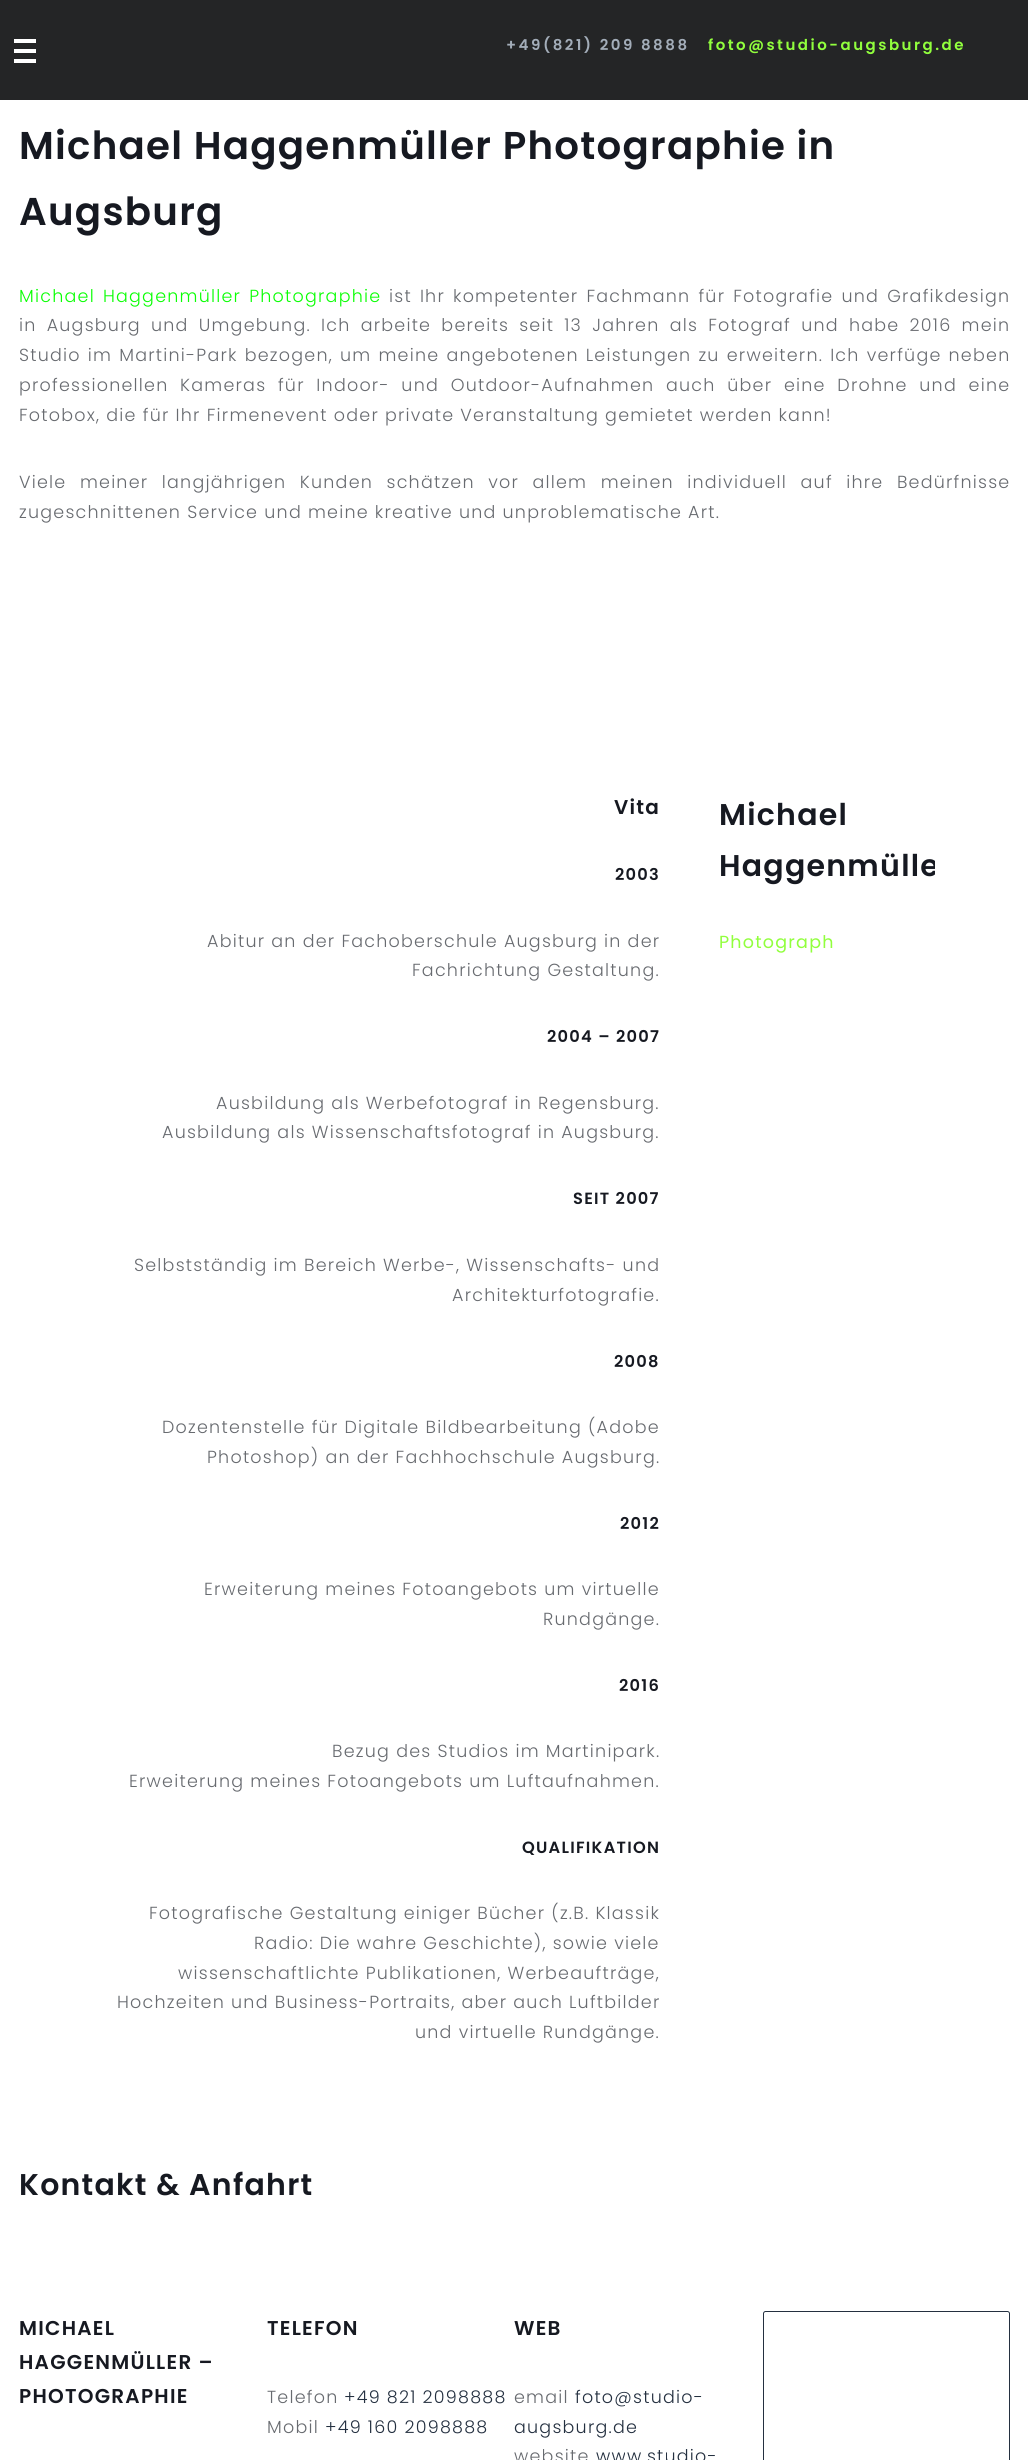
#include <cairo.h>
#include <math.h>
#include <stddef.h>


static void set_color(cairo_t *cr, unsigned color) {
    cairo_set_source_rgb(cr, (color >> 16) / 255.0, (color >> 8 & 255) / 255.0, (color & 255) / 255.0);
}

static void draw_spaced(cairo_t *cr, double x, double y, const char *s, double letter, double word) {
    cairo_move_to(cr, x, y);
    while (*s) {
        char ch[5] = {0};
        int n = 0;
        do ch[n++] = *s++; while ((*s & 0xC0) == 0x80);
        cairo_show_text(cr, ch);
        cairo_rel_move_to(cr, letter + word * (*ch == ' '), 0);
    }
}

static void fill_rect(cairo_t *cr, double x, double y, double w, double h, unsigned color) {
    set_color(cr, color);
    cairo_rectangle(cr, x, y, w, h);
    cairo_fill(cr);
}

int main(void) {
    cairo_surface_t *surface = cairo_image_surface_create(CAIRO_FORMAT_RGB24, 1028, 2460);
    cairo_t *cr = cairo_create(surface);
    cairo_font_options_t *options = cairo_font_options_create();
    cairo_font_options_set_hint_metrics(options, CAIRO_HINT_METRICS_OFF);
    cairo_font_options_set_hint_style(options, CAIRO_HINT_STYLE_NONE);
    cairo_set_font_options(cr, options);
    cairo_set_miter_limit(cr, 4);
    set_color(cr, 0xFFFFFF);
    cairo_paint(cr);
    fill_rect(cr, 0, 0, 1028, 100, 0x242526);
    cairo_select_font_face(cr, "Poppins SemiBold", CAIRO_FONT_SLANT_NORMAL, CAIRO_FONT_WEIGHT_NORMAL);
    cairo_set_font_size(cr, 15);
    set_color(cr, 0xA3ADB9);
    draw_spaced(cr, 506, 50, "+49(821) 209 8888", 2.5, 0);
    set_color(cr, 0x91FF3D);
    draw_spaced(cr, 708, 50, "foto@studio-augsburg.de", 2.5, 0);
    fill_rect(cr, 14, 49, 22, 4, 0xFFFFFF);
    fill_rect(cr, 14, 39, 22, 4, 0xFFFFFF);
    fill_rect(cr, 14, 59, 22, 4, 0xFFFFFF);
    cairo_set_font_size(cr, 38.75);
    set_color(cr, 0x161921);
    draw_spaced(cr, 19, 159, "Michael Haggenmüller Photographie in", 1.25, 0);
    draw_spaced(cr, 19, 225, "Augsburg", 1.25, 0);
    cairo_select_font_face(cr, "Poppins Light", CAIRO_FONT_SLANT_NORMAL, CAIRO_FONT_WEIGHT_NORMAL);
    cairo_set_font_size(cr, 17.5);
    set_color(cr, 0x0AFF04);
    draw_spaced(cr, 19, 302, "Michael Haggenmüller Photographie", 1.23, 2);
    set_color(cr, 0x686B70);
    draw_spaced(cr, 389, 302, "ist Ihr kompetenter Fachmann für Fotografie und Grafikdesign", 1.23, 2);
    draw_spaced(cr, 19, 331, "in Augsburg und Umgebung. Ich arbeite bereits seit 13 Jahren als Fotograf und habe 2016 mein", 1.23, 4.1);
    draw_spaced(cr, 19, 361, "Studio im Martini-Park bezogen, um meine angebotenen Leistungen zu erweitern. Ich verfüge neben", 1.23, 1);
    draw_spaced(cr, 19, 391, "professionellen Kameras für Indoor- und Outdoor-Aufnahmen auch über eine Drohne und eine", 1.23, 5.6);
    draw_spaced(cr, 19, 421, "Fotobox, die für Ihr Firmenevent oder private Veranstaltung gemietet werden kann!", 1.23, 0);
    draw_spaced(cr, 19, 488, "Viele meiner langjährigen Kunden schätzen vor allem meinen individuell auf ihre Bedürfnisse", 1.23, 7.4);
    draw_spaced(cr, 19, 518, "zugeschnittenen Service und meine kreative und unproblematische Art.", 1.23, 0);
    cairo_select_font_face(cr, "Poppins SemiBold", CAIRO_FONT_SLANT_NORMAL, CAIRO_FONT_WEIGHT_NORMAL);
    cairo_set_font_size(cr, 20);
    set_color(cr, 0x161921);
    draw_spaced(cr, 614, 814, "Vita", 1.25, 0);
    cairo_set_font_size(cr, 16.25);
    draw_spaced(cr, 615, 880, "2003", 1.25, 0);
    cairo_select_font_face(cr, "Poppins Light", CAIRO_FONT_SLANT_NORMAL, CAIRO_FONT_WEIGHT_NORMAL);
    cairo_set_font_size(cr, 17.5);
    set_color(cr, 0x686B70);
    draw_spaced(cr, 207, 947, "Abitur an der Fachoberschule Augsburg in der", 1.23, 0);
    draw_spaced(cr, 412, 976, "Fachrichtung Gestaltung.", 1.23, 0);
    cairo_select_font_face(cr, "Poppins SemiBold", CAIRO_FONT_SLANT_NORMAL, CAIRO_FONT_WEIGHT_NORMAL);
    cairo_set_font_size(cr, 16.25);
    set_color(cr, 0x161921);
    draw_spaced(cr, 547, 1042, "2004 – 2007", 1.25, 0);
    cairo_select_font_face(cr, "Poppins Light", CAIRO_FONT_SLANT_NORMAL, CAIRO_FONT_WEIGHT_NORMAL);
    cairo_set_font_size(cr, 17.5);
    set_color(cr, 0x686B70);
    draw_spaced(cr, 216, 1109, "Ausbildung als Werbefotograf in Regensburg.", 1.23, 0);
    draw_spaced(cr, 162, 1138, "Ausbildung als Wissenschaftsfotograf in Augsburg.", 1.23, 0);
    cairo_select_font_face(cr, "Poppins SemiBold", CAIRO_FONT_SLANT_NORMAL, CAIRO_FONT_WEIGHT_NORMAL);
    cairo_set_font_size(cr, 16.25);
    set_color(cr, 0x161921);
    draw_spaced(cr, 573, 1204, "SEIT 2007", 1.25, 0);
    cairo_select_font_face(cr, "Poppins Light", CAIRO_FONT_SLANT_NORMAL, CAIRO_FONT_WEIGHT_NORMAL);
    cairo_set_font_size(cr, 17.5);
    set_color(cr, 0x686B70);
    draw_spaced(cr, 134, 1271, "Selbstständig im Bereich Werbe-, Wissenschafts- und", 1.23, 0);
    draw_spaced(cr, 452, 1301, "Architekturfotografie.", 1.23, 0);
    cairo_select_font_face(cr, "Poppins SemiBold", CAIRO_FONT_SLANT_NORMAL, CAIRO_FONT_WEIGHT_NORMAL);
    cairo_set_font_size(cr, 16.25);
    set_color(cr, 0x161921);
    draw_spaced(cr, 614, 1367, "2008", 1.25, 0);
    cairo_select_font_face(cr, "Poppins Light", CAIRO_FONT_SLANT_NORMAL, CAIRO_FONT_WEIGHT_NORMAL);
    cairo_set_font_size(cr, 17.5);
    set_color(cr, 0x686B70);
    draw_spaced(cr, 162, 1433, "Dozentenstelle für Digitale Bildbearbeitung (Adobe", 1.23, 0);
    draw_spaced(cr, 207, 1463, "Photoshop) an der Fachhochschule Augsburg.", 1.23, 0);
    cairo_select_font_face(cr, "Poppins SemiBold", CAIRO_FONT_SLANT_NORMAL, CAIRO_FONT_WEIGHT_NORMAL);
    cairo_set_font_size(cr, 16.25);
    set_color(cr, 0x161921);
    draw_spaced(cr, 620, 1529, "2012", 1.25, 0);
    cairo_select_font_face(cr, "Poppins Light", CAIRO_FONT_SLANT_NORMAL, CAIRO_FONT_WEIGHT_NORMAL);
    cairo_set_font_size(cr, 17.5);
    set_color(cr, 0x686B70);
    draw_spaced(cr, 204, 1595, "Erweiterung meines Fotoangebots um virtuelle", 1.23, 0);
    draw_spaced(cr, 543, 1625, "Rundgänge.", 1.23, 0);
    cairo_select_font_face(cr, "Poppins SemiBold", CAIRO_FONT_SLANT_NORMAL, CAIRO_FONT_WEIGHT_NORMAL);
    cairo_set_font_size(cr, 16.25);
    set_color(cr, 0x161921);
    draw_spaced(cr, 619, 1691, "2016", 1.25, 0);
    cairo_select_font_face(cr, "Poppins Light", CAIRO_FONT_SLANT_NORMAL, CAIRO_FONT_WEIGHT_NORMAL);
    cairo_set_font_size(cr, 17.5);
    set_color(cr, 0x686B70);
    draw_spaced(cr, 332, 1757, "Bezug des Studios im Martinipark.", 1.23, 0);
    draw_spaced(cr, 129, 1787, "Erweiterung meines Fotoangebots um Luftaufnahmen.", 1.23, 0);
    cairo_select_font_face(cr, "Poppins SemiBold", CAIRO_FONT_SLANT_NORMAL, CAIRO_FONT_WEIGHT_NORMAL);
    cairo_set_font_size(cr, 16.25);
    set_color(cr, 0x161921);
    draw_spaced(cr, 522, 1853, "QUALIFIKATION", 1.25, 0);
    cairo_select_font_face(cr, "Poppins Light", CAIRO_FONT_SLANT_NORMAL, CAIRO_FONT_WEIGHT_NORMAL);
    cairo_set_font_size(cr, 17.5);
    set_color(cr, 0x686B70);
    draw_spaced(cr, 149, 1919, "Fotografische Gestaltung einiger Bücher (z.B. Klassik", 1.23, 0);
    draw_spaced(cr, 254, 1949, "Radio: Die wahre Geschichte), sowie viele", 1.23, 0);
    draw_spaced(cr, 178, 1979, "wissenschaftlichte Publikationen, Werbeaufträge,", 1.23, 0);
    draw_spaced(cr, 117, 2008, "Hochzeiten und Business-Portraits, aber auch Luftbilder", 1.23, 0);
    draw_spaced(cr, 415, 2038, "und virtuelle Rundgänge.", 1.23, 0);
    cairo_select_font_face(cr, "Poppins SemiBold", CAIRO_FONT_SLANT_NORMAL, CAIRO_FONT_WEIGHT_NORMAL);
    cairo_set_font_size(cr, 30);
    set_color(cr, 0x161921);
    draw_spaced(cr, 719, 825, "Michael", 1.25, 0);
    cairo_save(cr);
    cairo_rectangle(cr, 719, 678, 216, 643);
    cairo_clip(cr);
    draw_spaced(cr, 719, 876, "Haggenmülle", 1.25, 0);
    cairo_restore(cr);
    cairo_select_font_face(cr, "Poppins", CAIRO_FONT_SLANT_NORMAL, CAIRO_FONT_WEIGHT_NORMAL);
    cairo_set_font_size(cr, 17.5);
    set_color(cr, 0x91FF3D);
    draw_spaced(cr, 719, 948, "Photograph", 1.23, 0);
    cairo_select_font_face(cr, "Poppins SemiBold", CAIRO_FONT_SLANT_NORMAL, CAIRO_FONT_WEIGHT_NORMAL);
    cairo_set_font_size(cr, 30);
    set_color(cr, 0x161921);
    draw_spaced(cr, 19, 2195, "Kontakt & Anfahrt", 1.25, 0);
    cairo_set_font_size(cr, 20);
    draw_spaced(cr, 19, 2335, "MICHAEL", 1.25, 0);
    draw_spaced(cr, 19, 2369, "HAGGENMÜLLER –", 1.25, 0);
    draw_spaced(cr, 19, 2403, "PHOTOGRAPHIE", 1.25, 0);
    draw_spaced(cr, 267, 2335, "TELEFON", 1.25, 0);
    cairo_select_font_face(cr, "Poppins Light", CAIRO_FONT_SLANT_NORMAL, CAIRO_FONT_WEIGHT_NORMAL);
    cairo_set_font_size(cr, 17.5);
    set_color(cr, 0x686B70);
    draw_spaced(cr, 267, 2403, "Telefon", 1.23, 0);
    set_color(cr, 0x243040);
    draw_spaced(cr, 344, 2403, "+49 821 2098888", 1.23, 0);
    set_color(cr, 0x686B70);
    draw_spaced(cr, 267, 2433, "Mobil", 1.23, 0);
    set_color(cr, 0x243040);
    draw_spaced(cr, 325, 2433, "+49 160 2098888", 1.23, 0);
    cairo_select_font_face(cr, "Poppins SemiBold", CAIRO_FONT_SLANT_NORMAL, CAIRO_FONT_WEIGHT_NORMAL);
    cairo_set_font_size(cr, 20);
    set_color(cr, 0x161921);
    draw_spaced(cr, 514, 2335, "WEB", 1.25, 0);
    cairo_select_font_face(cr, "Poppins Light", CAIRO_FONT_SLANT_NORMAL, CAIRO_FONT_WEIGHT_NORMAL);
    cairo_set_font_size(cr, 17.5);
    set_color(cr, 0x686B70);
    draw_spaced(cr, 514, 2403, "email", 1.23, 0);
    set_color(cr, 0x243040);
    draw_spaced(cr, 575, 2403, "foto@studio-", 1.23, 0);
    draw_spaced(cr, 514, 2433, "augsburg.de", 1.23, 0);
    set_color(cr, 0x686B70);
    draw_spaced(cr, 514, 2462, "website", 1.23, 0);
    set_color(cr, 0x243040);
    draw_spaced(cr, 596, 2462, "www.studio-", 1.23, 0);
    cairo_new_path(cr);
    cairo_move_to(cr, 765.5, 2311.5);
    cairo_line_to(cr, 1007.5, 2311.5);
    cairo_curve_to(cr, 1008.5, 2311.5, 1009.5, 2312.5, 1009.5, 2313.5);
    cairo_line_to(cr, 1009.5, 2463.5);
    cairo_line_to(cr, 763.5, 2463.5);
    cairo_line_to(cr, 763.5, 2313.5);
    cairo_curve_to(cr, 763.5, 2312.5, 764.5, 2311.5, 765.5, 2311.5);
    cairo_close_path(cr);
    cairo_set_line_width(cr, 1);
    cairo_stroke(cr);
    cairo_surface_write_to_png(surface, "output.png");
    cairo_font_options_destroy(options);
    cairo_destroy(cr);
    cairo_surface_destroy(surface);
    return 0;
}
